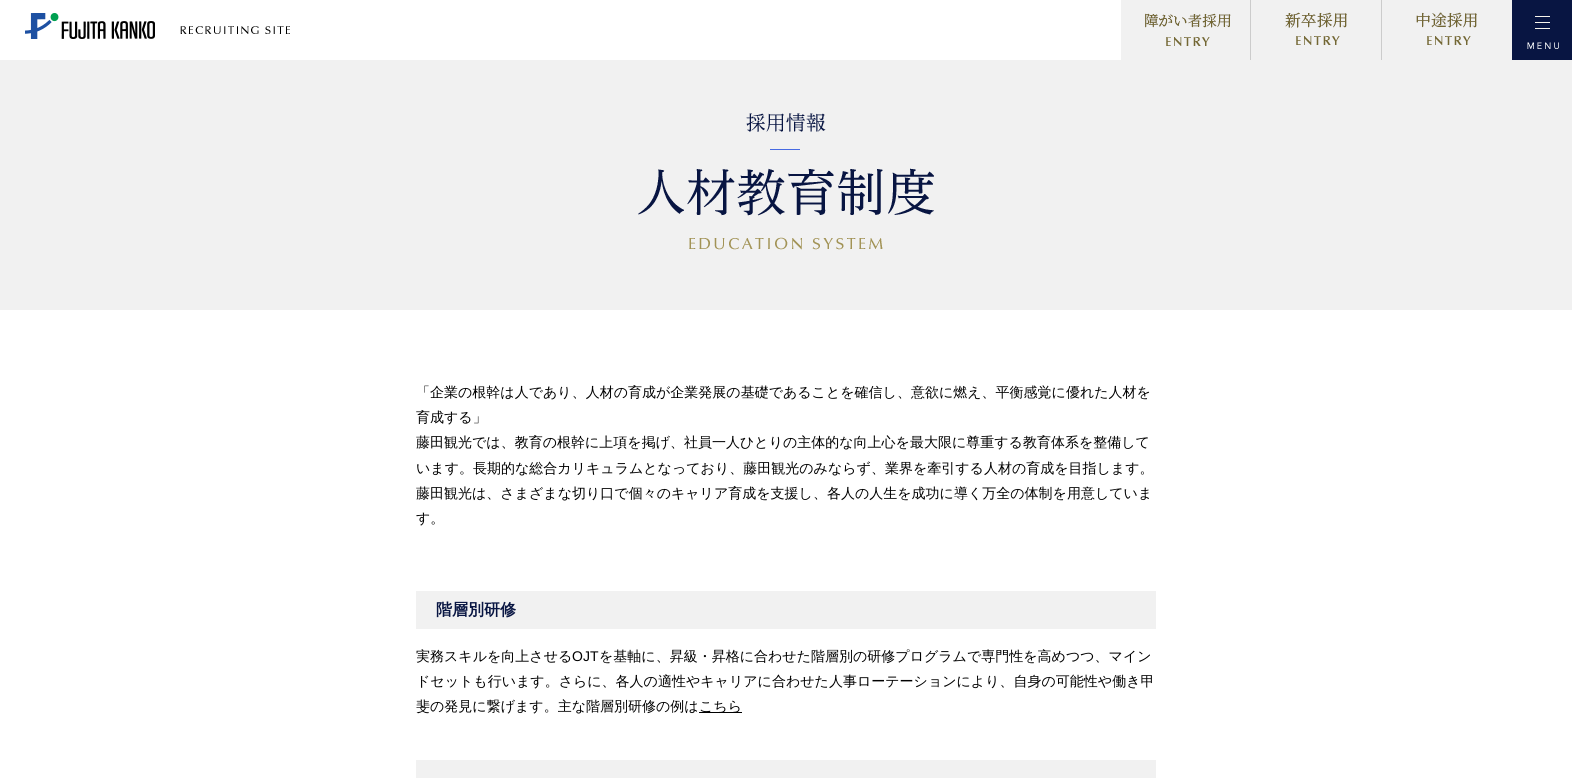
#include <cairo.h>
#include <math.h>
#include <stddef.h>


static void set_color(cairo_t *cr, unsigned color) {
    cairo_set_source_rgb(cr, (color >> 16) / 255.0, (color >> 8 & 255) / 255.0, (color & 255) / 255.0);
}

static void draw_text(cairo_t *cr, double x, double y, const char *s, const char *family, double size, int italic, int bold, unsigned color) {
    cairo_select_font_face(cr, family, italic ? CAIRO_FONT_SLANT_ITALIC : CAIRO_FONT_SLANT_NORMAL,
        bold ? CAIRO_FONT_WEIGHT_BOLD : CAIRO_FONT_WEIGHT_NORMAL);
    cairo_set_font_size(cr, size);
    set_color(cr, color);
    cairo_move_to(cr, x, y);
    cairo_show_text(cr, s);
}

static void fill_rect(cairo_t *cr, double x, double y, double w, double h, unsigned color) {
    set_color(cr, color);
    cairo_rectangle(cr, x, y, w, h);
    cairo_fill(cr);
}

static void draw_image(cairo_t *cr, const char *path, double x, double y, double w, double h) {
    cairo_surface_t *image = cairo_image_surface_create_from_png(path);
    cairo_save(cr);
    cairo_set_source_surface(cr, image, x, y);
    cairo_rectangle(cr, x, y, w, h);
    cairo_fill(cr);
    cairo_restore(cr);
    cairo_surface_destroy(image);
}

int main(void) {
    cairo_surface_t *surface = cairo_image_surface_create(CAIRO_FORMAT_RGB24, 1572, 778);
    cairo_t *cr = cairo_create(surface);
    cairo_font_options_t *options = cairo_font_options_create();
    cairo_font_options_set_hint_metrics(options, CAIRO_HINT_METRICS_OFF);
    cairo_font_options_set_hint_style(options, CAIRO_HINT_STYLE_NONE);
    cairo_set_font_options(cr, options);
    cairo_set_miter_limit(cr, 4);
    set_color(cr, 0xFFFFFF);
    cairo_paint(cr);
    draw_image(cr, "assets/img1.png", 25, 13, 265, 26);
    draw_image(cr, "assets/img2.png", 1121, 0, 130, 60);
    draw_image(cr, "assets/img3.png", 1251, 0, 131, 60);
    draw_image(cr, "assets/img4.png", 1382, 0, 130, 60);
    draw_image(cr, "assets/img5.png", 1512, 0, 60, 60);
    fill_rect(cr, 0, 60, 1572, 250, 0xF1F1F1);
    draw_image(cr, "assets/img6.png", 638, 113, 296, 137);
    draw_text(cr, 416, 397, "「企業の根幹は人であり、人材の育成が企業発展の基礎であることを確信し、意欲に燃え、平衡感覚に優れた人材を", "WenQuanYi Zen Hei Medium", 14, 0, 0, 0x000000);
    draw_text(cr, 416, 422, "育成する」", "WenQuanYi Zen Hei Medium", 14, 0, 0, 0x000000);
    draw_text(cr, 416, 447, "藤田観光では、教育の根幹に上項を掲げ、社員一人ひとりの主体的な向上心を最大限に尊重する教育体系を整備して", "WenQuanYi Zen Hei Medium", 14, 0, 0, 0x000000);
    draw_text(cr, 416, 473, "います。長期的な総合カリキュラムとなっており、藤田観光のみならず、業界を牽引する人材の育成を目指します。", "WenQuanYi Zen Hei Medium", 14, 0, 0, 0x000000);
    draw_text(cr, 416, 498, "藤田観光は、さまざまな切り口で個々のキャリア育成を支援し、各人の人生を成功に導く万全の体制を用意していま", "WenQuanYi Zen Hei Medium", 14, 0, 0, 0x000000);
    draw_text(cr, 416, 523, "す。", "WenQuanYi Zen Hei Medium", 14, 0, 0, 0x000000);
    fill_rect(cr, 416, 591, 740, 38, 0xF1F1F1);
    draw_text(cr, 436, 615, "階層別研修", "WenQuanYi Zen Hei", 16, 0, 1, 0x081542);
    draw_text(cr, 416, 661, "実務スキルを向上させる", "WenQuanYi Zen Hei Medium", 14, 0, 0, 0x000000);
    draw_text(cr, 572, 661, "OJT", "Liberation Sans", 14, 0, 0, 0x000000);
    draw_text(cr, 599, 661, "を基軸に、昇級・昇格に合わせた階層別の研修プログラムで専門性を高めつつ、マイン", "WenQuanYi Zen Hei Medium", 14, 0, 0, 0x000000);
    draw_text(cr, 416, 686, "ドセットも行います。さらに、各人の適性やキャリアに合わせた人事ローテーションにより、自身の可能性や働き甲", "WenQuanYi Zen Hei Medium", 14, 0, 0, 0x000000);
    draw_text(cr, 416, 711, "斐の発見に繋げます。主な階層別研修の例は", "WenQuanYi Zen Hei Medium", 14, 0, 0, 0x000000);
    fill_rect(cr, 699, 712, 43, 1, 0x000000);
    draw_text(cr, 699, 711, "こちら", "WenQuanYi Zen Hei Medium", 14, 0, 0, 0x000000);
    fill_rect(cr, 416, 760, 740, 18, 0xF1F1F1);
    cairo_surface_write_to_png(surface, "output.png");
    cairo_font_options_destroy(options);
    cairo_destroy(cr);
    cairo_surface_destroy(surface);
    return 0;
}
